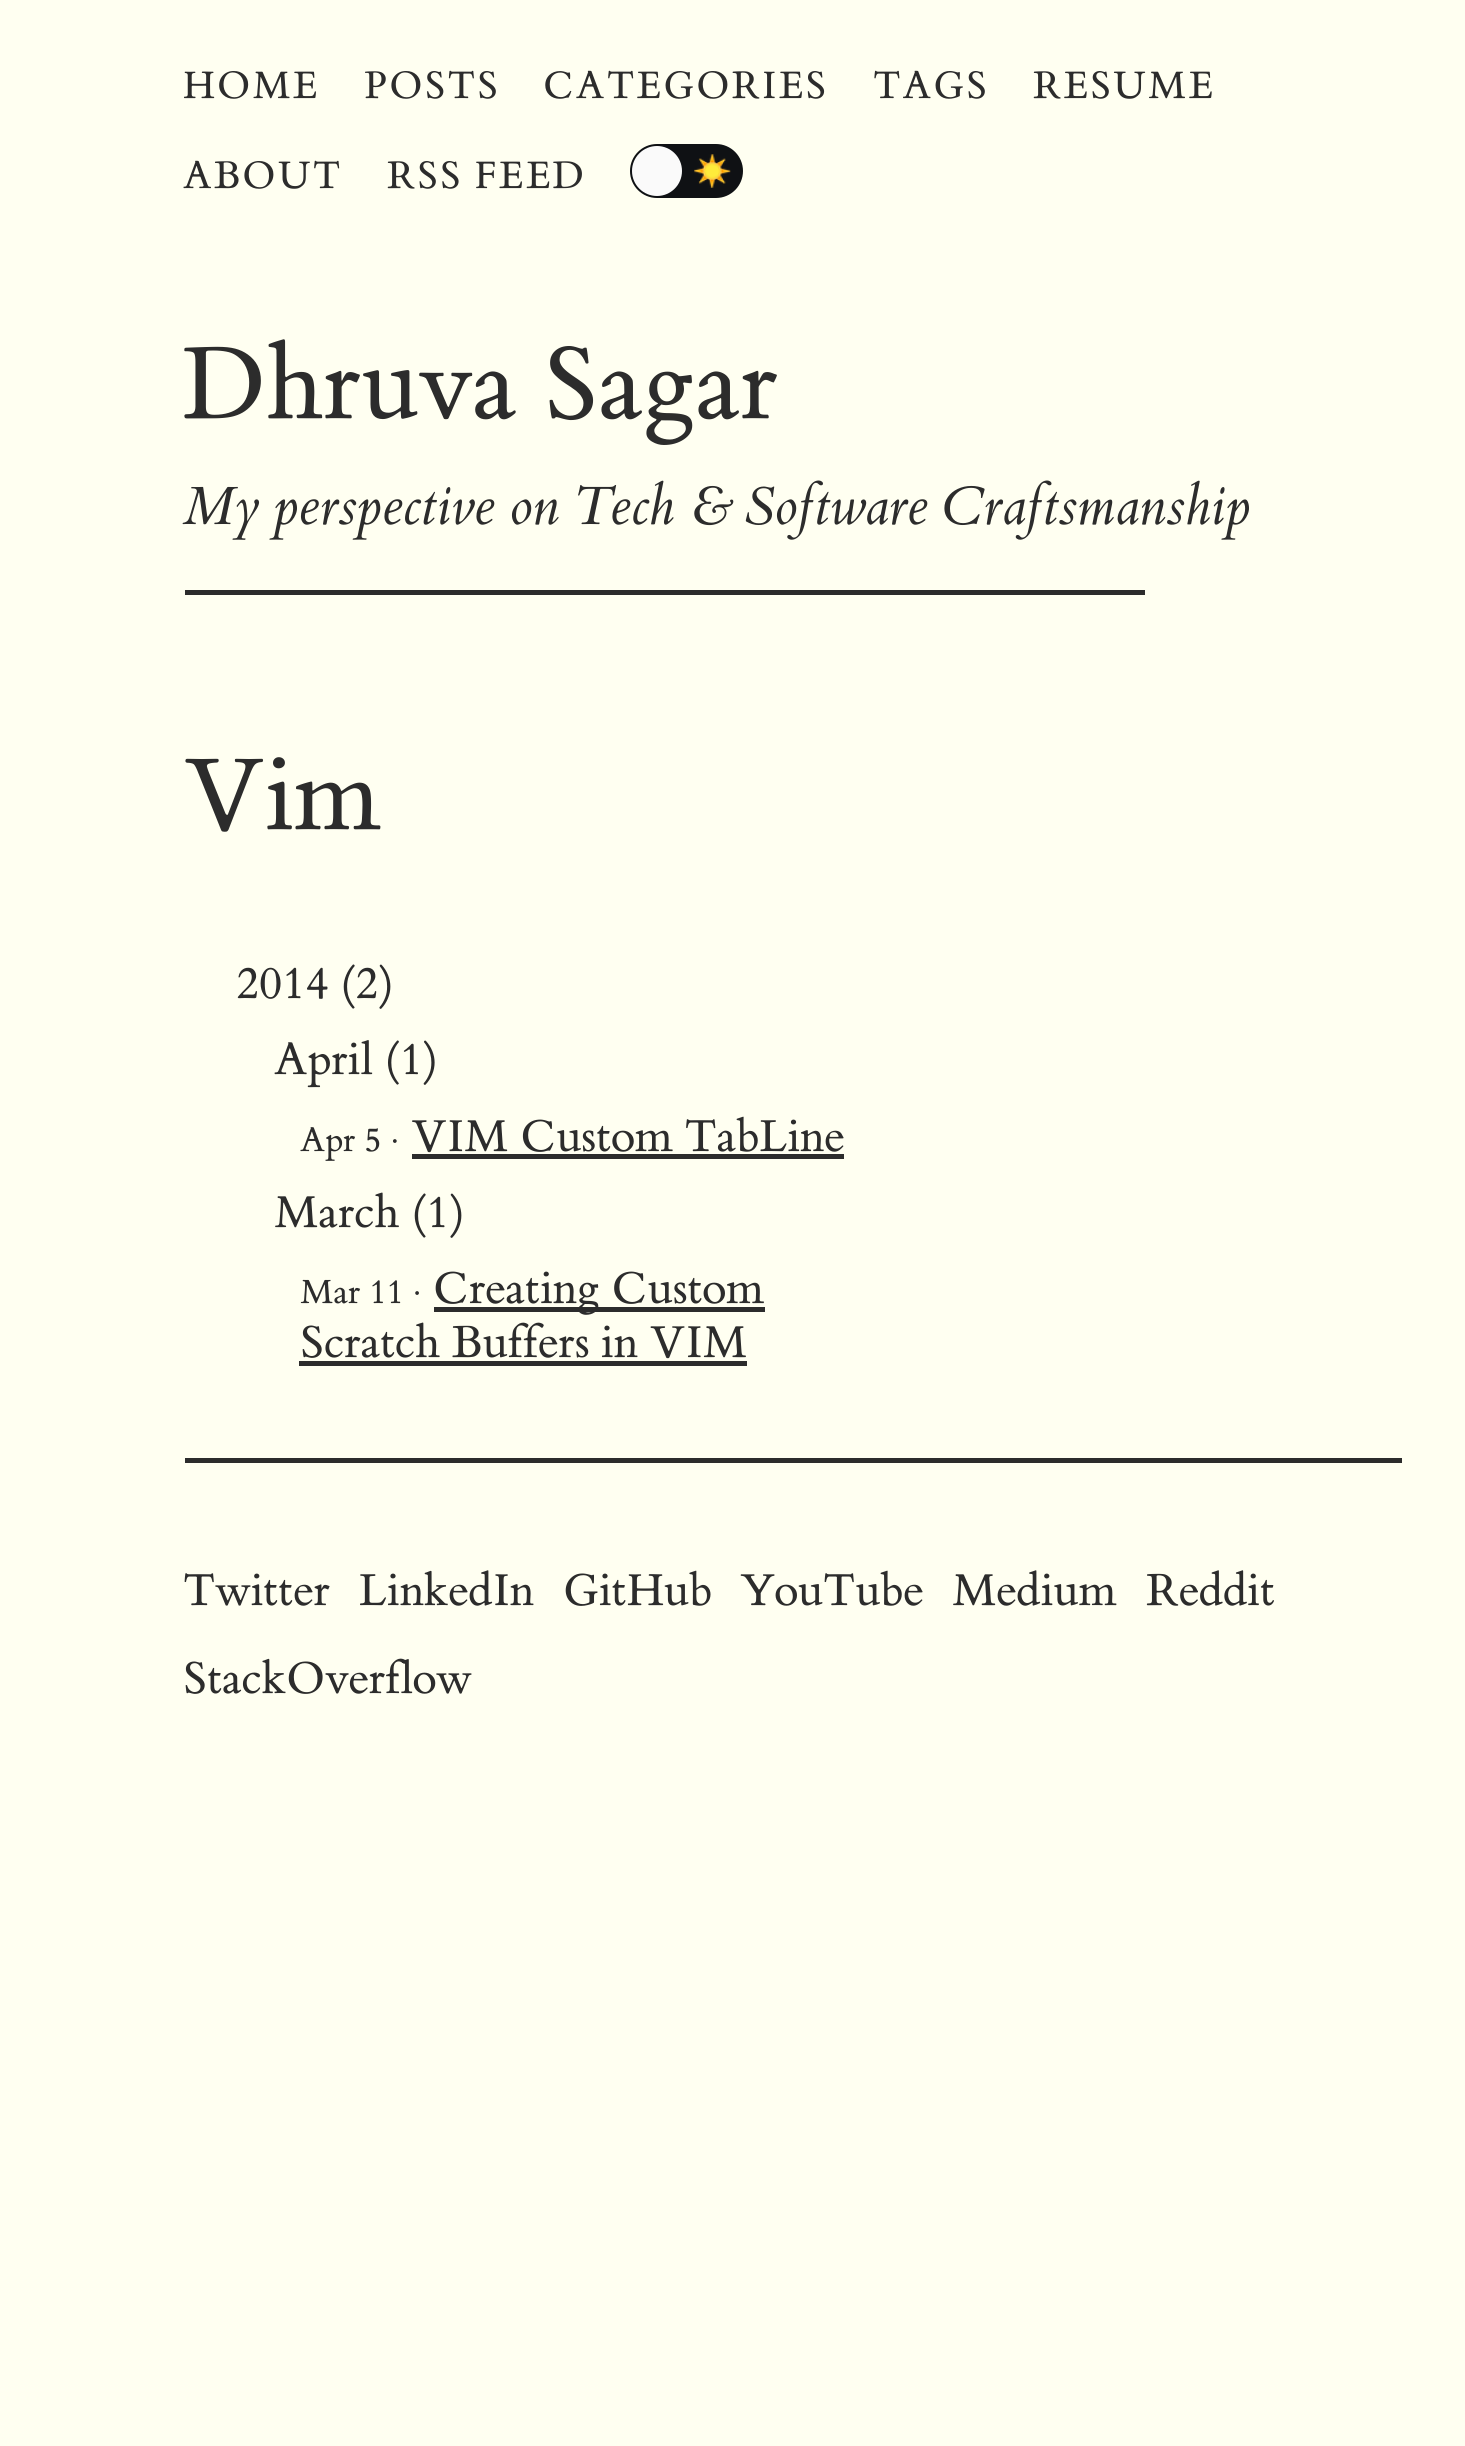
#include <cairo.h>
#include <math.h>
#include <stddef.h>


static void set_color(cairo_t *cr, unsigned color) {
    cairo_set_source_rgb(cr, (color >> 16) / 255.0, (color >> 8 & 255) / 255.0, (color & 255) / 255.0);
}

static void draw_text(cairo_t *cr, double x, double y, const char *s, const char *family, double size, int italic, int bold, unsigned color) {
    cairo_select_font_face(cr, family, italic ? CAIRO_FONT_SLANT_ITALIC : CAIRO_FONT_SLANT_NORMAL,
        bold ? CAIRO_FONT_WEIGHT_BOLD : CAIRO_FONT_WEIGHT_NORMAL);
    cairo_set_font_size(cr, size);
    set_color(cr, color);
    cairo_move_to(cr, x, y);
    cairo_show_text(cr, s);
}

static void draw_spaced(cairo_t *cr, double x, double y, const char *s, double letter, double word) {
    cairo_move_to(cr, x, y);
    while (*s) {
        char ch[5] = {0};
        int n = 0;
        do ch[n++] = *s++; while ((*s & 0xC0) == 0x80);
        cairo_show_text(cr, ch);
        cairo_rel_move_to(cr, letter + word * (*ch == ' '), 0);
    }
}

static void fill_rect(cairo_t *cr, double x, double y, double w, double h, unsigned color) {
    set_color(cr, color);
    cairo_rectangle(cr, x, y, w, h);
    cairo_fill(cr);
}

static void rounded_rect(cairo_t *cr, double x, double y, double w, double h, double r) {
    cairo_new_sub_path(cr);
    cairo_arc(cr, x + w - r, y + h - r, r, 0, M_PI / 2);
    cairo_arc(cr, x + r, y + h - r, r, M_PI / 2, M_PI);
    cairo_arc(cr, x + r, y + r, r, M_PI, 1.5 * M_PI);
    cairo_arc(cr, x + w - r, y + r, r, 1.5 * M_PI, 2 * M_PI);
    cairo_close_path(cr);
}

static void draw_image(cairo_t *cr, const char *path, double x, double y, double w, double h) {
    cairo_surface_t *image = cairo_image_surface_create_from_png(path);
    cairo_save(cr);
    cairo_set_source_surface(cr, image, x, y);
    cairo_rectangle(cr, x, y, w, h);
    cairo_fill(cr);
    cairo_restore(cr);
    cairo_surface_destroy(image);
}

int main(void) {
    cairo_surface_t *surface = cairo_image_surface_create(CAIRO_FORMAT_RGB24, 1465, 2446);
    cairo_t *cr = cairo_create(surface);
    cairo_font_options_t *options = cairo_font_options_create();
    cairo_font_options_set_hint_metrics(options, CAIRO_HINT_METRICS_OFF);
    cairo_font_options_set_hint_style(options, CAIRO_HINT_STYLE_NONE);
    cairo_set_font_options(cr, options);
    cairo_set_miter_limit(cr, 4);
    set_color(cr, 0xFFFFF1);
    cairo_paint(cr);
    cairo_select_font_face(cr, "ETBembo", CAIRO_FONT_SLANT_NORMAL, CAIRO_FONT_WEIGHT_NORMAL);
    cairo_set_font_size(cr, 40.5);
    set_color(cr, 0x2C2C2C);
    draw_spaced(cr, 183, 98, "HOME", 2, 0);
    draw_spaced(cr, 364, 98, "POSTS", 2, 0);
    draw_spaced(cr, 543, 98, "CATEGORIES", 2, 0);
    draw_spaced(cr, 873, 98, "TAGS", 2, 0);
    draw_spaced(cr, 1033, 98, "RESUME", 2, 0);
    draw_spaced(cr, 183, 188, "ABOUT", 2, 0);
    draw_spaced(cr, 387, 188, "RSS FEED", 2, 0);
    set_color(cr, 0x0F1114);
    rounded_rect(cr, 630, 144, 113, 54, 27);
    cairo_fill(cr);
    draw_image(cr, "assets/img1.png", 694, 154, 37, 34);
    set_color(cr, 0xFAFAFA);
    cairo_arc(cr, 657, 171, 25, 0, 2 * M_PI);
    cairo_fill(cr);
    draw_text(cr, 183, 418, "Dhruva Sagar", "ETBembo", 108, 0, 0, 0x2C2C2C);
    draw_text(cr, 183, 524, "My perspective on Tech & Software Craftsmanship", "ETBembo", 57.4, 1, 0, 0x2C2C2C);
    fill_rect(cr, 185, 590, 960, 5, 0x2C2C2C);
    draw_text(cr, 183, 829, "Vim", "ETBembo", 108, 0, 0, 0x2C2C2C);
    draw_text(cr, 236, 998, "2014 (2)", "ETBembo", 47.25, 0, 0, 0x2C2C2C);
    draw_text(cr, 274, 1074, "April (1)", "ETBembo", 47.25, 0, 0, 0x2C2C2C);
    draw_text(cr, 300, 1151, "Apr 5 ·", "ETBembo", 35.5, 0, 0, 0x2C2C2C);
    draw_text(cr, 411, 1151, "VIM Custom TabLine", "ETBembo", 47.25, 0, 0, 0x2C2C2C);
    fill_rect(cr, 412, 1154, 432, 5, 0x2C2C2C);
    draw_text(cr, 274, 1227, "March (1)", "ETBembo", 47.25, 0, 0, 0x2C2C2C);
    draw_text(cr, 300, 1303, "Mar 11 ·", "ETBembo", 35.5, 0, 0, 0x2C2C2C);
    fill_rect(cr, 434, 1307, 331, 5, 0x2C2C2C);
    draw_text(cr, 433, 1303, "Creating Custom", "ETBembo", 47.25, 0, 0, 0x2C2C2C);
    draw_text(cr, 300, 1357, "Scratch Buffers in VIM", "ETBembo", 47.25, 0, 0, 0x2C2C2C);
    fill_rect(cr, 299, 1361, 448, 5, 0x2C2C2C);
    fill_rect(cr, 185, 1458, 1217, 5, 0x2C2C2C);
    draw_text(cr, 183, 1605, "Twitter", "ETBembo", 47.25, 0, 0, 0x2C2C2C);
    draw_text(cr, 359, 1605, "LinkedIn", "ETBembo", 47.25, 0, 0, 0x2C2C2C);
    draw_text(cr, 563, 1605, "GitHub", "ETBembo", 47.25, 0, 0, 0x2C2C2C);
    draw_text(cr, 740, 1605, "YouTube", "ETBembo", 47.25, 0, 0, 0x2C2C2C);
    draw_text(cr, 952, 1605, "Medium", "ETBembo", 47.25, 0, 0, 0x2C2C2C);
    draw_text(cr, 1146, 1605, "Reddit", "ETBembo", 47.25, 0, 0, 0x2C2C2C);
    draw_text(cr, 183, 1693, "StackOverflow", "ETBembo", 47.25, 0, 0, 0x2C2C2C);
    cairo_surface_write_to_png(surface, "output.png");
    cairo_font_options_destroy(options);
    cairo_destroy(cr);
    cairo_surface_destroy(surface);
    return 0;
}
